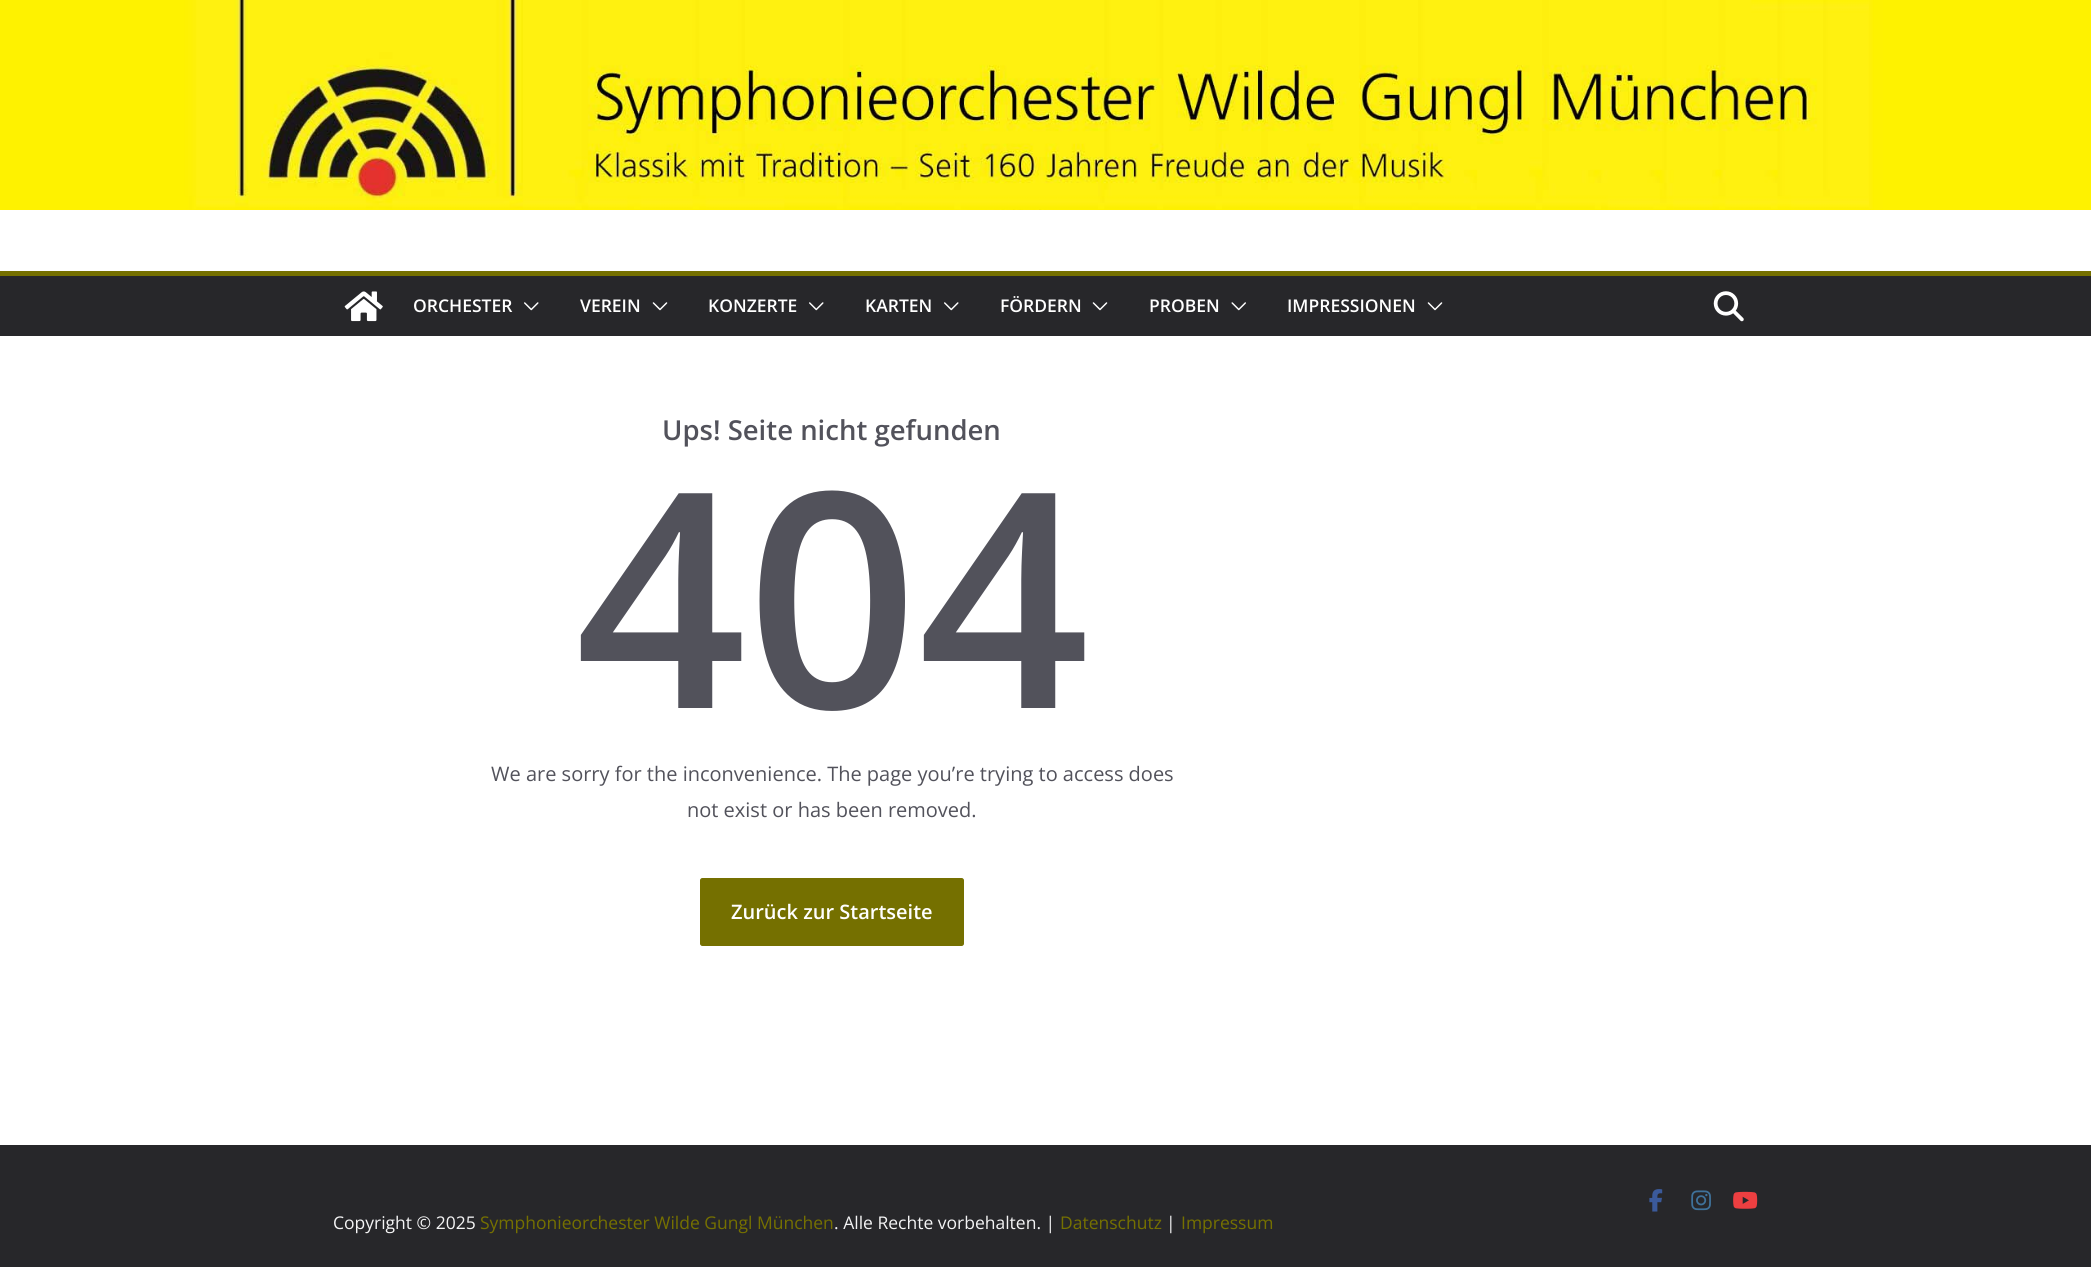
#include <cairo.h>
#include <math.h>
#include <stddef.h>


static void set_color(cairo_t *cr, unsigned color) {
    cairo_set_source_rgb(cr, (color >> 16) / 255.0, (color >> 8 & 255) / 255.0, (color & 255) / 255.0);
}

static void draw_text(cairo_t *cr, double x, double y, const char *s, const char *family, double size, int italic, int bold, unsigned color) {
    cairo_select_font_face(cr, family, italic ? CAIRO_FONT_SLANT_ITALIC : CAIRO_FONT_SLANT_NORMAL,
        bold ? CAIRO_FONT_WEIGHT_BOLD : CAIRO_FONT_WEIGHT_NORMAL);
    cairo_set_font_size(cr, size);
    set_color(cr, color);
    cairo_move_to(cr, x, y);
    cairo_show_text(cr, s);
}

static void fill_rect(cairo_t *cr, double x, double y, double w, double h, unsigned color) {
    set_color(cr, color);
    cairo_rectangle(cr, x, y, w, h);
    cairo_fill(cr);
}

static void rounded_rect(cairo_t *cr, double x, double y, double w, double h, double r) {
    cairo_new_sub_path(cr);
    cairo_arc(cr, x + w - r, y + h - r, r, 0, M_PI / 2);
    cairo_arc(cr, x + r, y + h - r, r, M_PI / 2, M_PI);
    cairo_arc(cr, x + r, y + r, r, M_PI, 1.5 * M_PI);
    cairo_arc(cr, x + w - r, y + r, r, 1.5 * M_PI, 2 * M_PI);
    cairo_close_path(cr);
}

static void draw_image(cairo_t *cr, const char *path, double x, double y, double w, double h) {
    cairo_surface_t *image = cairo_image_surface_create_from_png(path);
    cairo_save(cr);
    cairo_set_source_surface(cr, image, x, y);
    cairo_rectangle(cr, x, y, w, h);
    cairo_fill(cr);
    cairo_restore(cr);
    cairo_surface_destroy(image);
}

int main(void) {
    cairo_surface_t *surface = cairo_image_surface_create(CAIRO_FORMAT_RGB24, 2091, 1267);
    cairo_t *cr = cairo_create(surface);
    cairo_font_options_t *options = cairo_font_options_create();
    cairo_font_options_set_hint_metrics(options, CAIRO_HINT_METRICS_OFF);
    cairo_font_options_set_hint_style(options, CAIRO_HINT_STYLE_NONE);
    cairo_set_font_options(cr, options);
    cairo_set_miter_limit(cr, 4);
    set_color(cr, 0xFFFFFF);
    cairo_paint(cr);
    draw_image(cr, "assets/img1.png", 0, 0, 2091, 210);
    fill_rect(cr, 0, 276, 2091, 60, 0x27272A);
    fill_rect(cr, 0, 271, 2091, 5, 0x757000);
    draw_image(cr, "assets/img2.png", 344, 291, 39, 31);
    draw_text(cr, 413, 312, "ORCHESTER", "Open Sans SemiBold", 17.5, 0, 0, 0xFFFFFF);
    draw_image(cr, "assets/img3.png", 524, 302, 15, 9);
    draw_text(cr, 580, 312, "VEREIN", "Open Sans SemiBold", 17.5, 0, 0, 0xFFFFFF);
    draw_image(cr, "assets/img4.png", 652, 302, 16, 9);
    draw_text(cr, 708, 312, "KONZERTE", "Open Sans SemiBold", 17.5, 0, 0, 0xFFFFFF);
    draw_image(cr, "assets/img3.png", 809, 302, 15, 9);
    draw_text(cr, 865, 312, "KARTEN", "Open Sans SemiBold", 17.5, 0, 0, 0xFFFFFF);
    draw_image(cr, "assets/img3.png", 944, 302, 15, 9);
    draw_text(cr, 1000, 312, "FÖRDERN", "Open Sans SemiBold", 17.5, 0, 0, 0xFFFFFF);
    draw_image(cr, "assets/img4.png", 1092, 302, 16, 9);
    draw_text(cr, 1149, 312, "PROBEN", "Open Sans SemiBold", 17.5, 0, 0, 0xFFFFFF);
    draw_image(cr, "assets/img5.png", 1231, 302, 15, 9);
    draw_text(cr, 1287, 312, "IMPRESSIONEN", "Open Sans SemiBold", 17.5, 0, 0, 0xFFFFFF);
    draw_image(cr, "assets/img4.png", 1427, 302, 16, 9);
    draw_image(cr, "assets/img6.png", 1713, 291, 31, 31);
    draw_text(cr, 662, 440, "Ups! Seite nicht gefunden", "Open Sans SemiBold", 27.5, 0, 0, 0x52525B);
    draw_text(cr, 575, 708, "404", "Open Sans SemiBold", 300, 0, 0, 0x52525B);
    draw_text(cr, 491, 781, "We are sorry for the inconvenience. The page you’re trying to access does", "Open Sans", 20, 0, 0, 0x52525B);
    draw_text(cr, 687, 817, "not exist or has been removed.", "Open Sans", 20, 0, 0, 0x52525B);
    set_color(cr, 0x757000);
    rounded_rect(cr, 700.5, 878.5, 263, 67, 2);
    cairo_fill_preserve(cr);
    cairo_set_line_width(cr, 1);
    cairo_stroke(cr);
    draw_text(cr, 731, 919, "Zurück zur Startseite", "Open Sans SemiBold", 20, 0, 0, 0xFFFFFF);
    fill_rect(cr, 0, 1145, 2091, 122, 0x27272A);
    draw_image(cr, "assets/img7.png", 1649, 1189, 14, 23);
    draw_image(cr, "assets/img8.png", 1691, 1190, 20, 21);
    draw_image(cr, "assets/img9.png", 1733, 1191, 25, 18);
    draw_text(cr, 333, 1229, "Copyright © 2025", "Open Sans", 17.5, 0, 0, 0xF4F4F5);
    draw_text(cr, 480, 1229, "Symphonieorchester Wilde Gungl München", "Open Sans", 17.5, 0, 0, 0x757000);
    draw_text(cr, 834, 1229, ". Alle Rechte vorbehalten. |", "Open Sans", 17.5, 0, 0, 0xF4F4F5);
    draw_text(cr, 1060, 1229, "Datenschutz", "Open Sans", 17.5, 0, 0, 0x757000);
    draw_text(cr, 1166, 1229, "|", "Open Sans", 17.5, 0, 0, 0xF4F4F5);
    draw_text(cr, 1181, 1229, "Impressum", "Open Sans", 17.5, 0, 0, 0x757000);
    cairo_surface_write_to_png(surface, "output.png");
    cairo_font_options_destroy(options);
    cairo_destroy(cr);
    cairo_surface_destroy(surface);
    return 0;
}
